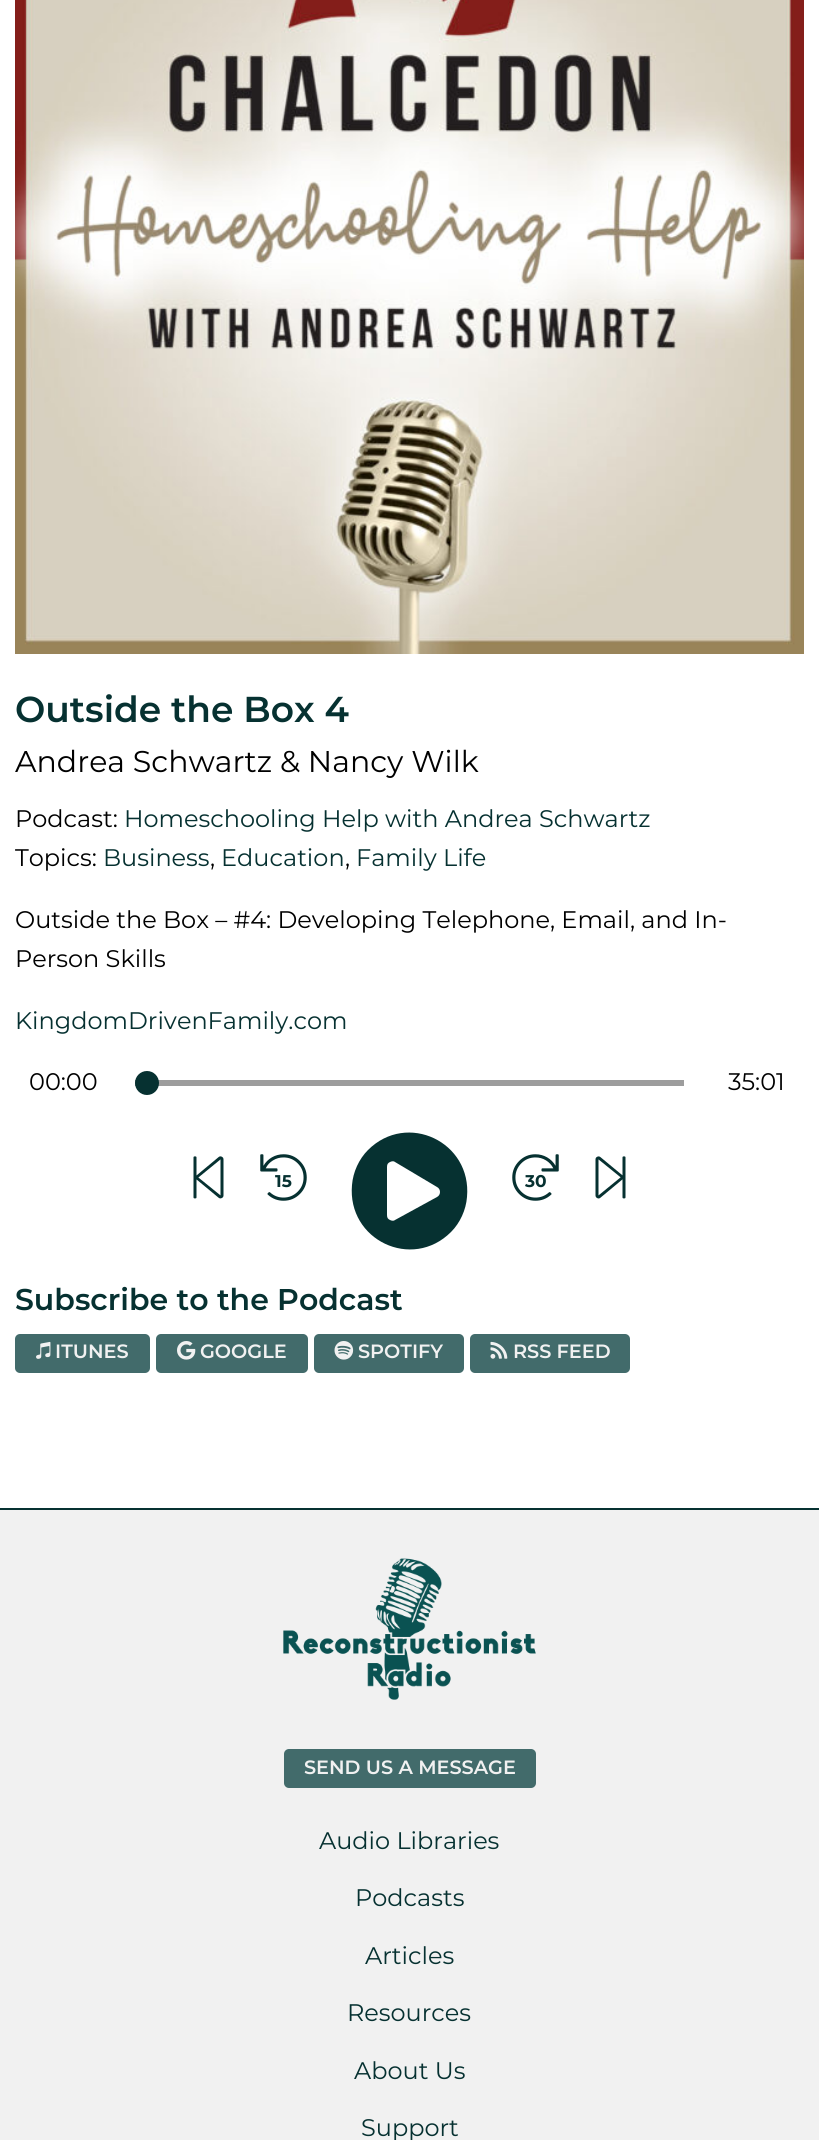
#include <cairo.h>
#include <math.h>
#include <stddef.h>


static void set_color(cairo_t *cr, unsigned color) {
    cairo_set_source_rgb(cr, (color >> 16) / 255.0, (color >> 8 & 255) / 255.0, (color & 255) / 255.0);
}

static void draw_text(cairo_t *cr, double x, double y, const char *s, const char *family, double size, int italic, int bold, unsigned color) {
    cairo_select_font_face(cr, family, italic ? CAIRO_FONT_SLANT_ITALIC : CAIRO_FONT_SLANT_NORMAL,
        bold ? CAIRO_FONT_WEIGHT_BOLD : CAIRO_FONT_WEIGHT_NORMAL);
    cairo_set_font_size(cr, size);
    set_color(cr, color);
    cairo_move_to(cr, x, y);
    cairo_show_text(cr, s);
}

static void fill_rect(cairo_t *cr, double x, double y, double w, double h, unsigned color) {
    set_color(cr, color);
    cairo_rectangle(cr, x, y, w, h);
    cairo_fill(cr);
}

static void rounded_rect(cairo_t *cr, double x, double y, double w, double h, double r) {
    cairo_new_sub_path(cr);
    cairo_arc(cr, x + w - r, y + h - r, r, 0, M_PI / 2);
    cairo_arc(cr, x + r, y + h - r, r, M_PI / 2, M_PI);
    cairo_arc(cr, x + r, y + r, r, M_PI, 1.5 * M_PI);
    cairo_arc(cr, x + w - r, y + r, r, 1.5 * M_PI, 2 * M_PI);
    cairo_close_path(cr);
}

static void draw_image(cairo_t *cr, const char *path, double x, double y, double w, double h) {
    cairo_surface_t *image = cairo_image_surface_create_from_png(path);
    cairo_save(cr);
    cairo_set_source_surface(cr, image, x, y);
    cairo_rectangle(cr, x, y, w, h);
    cairo_fill(cr);
    cairo_restore(cr);
    cairo_surface_destroy(image);
}

int main(void) {
    cairo_surface_t *surface = cairo_image_surface_create(CAIRO_FORMAT_RGB24, 819, 2140);
    cairo_t *cr = cairo_create(surface);
    cairo_font_options_t *options = cairo_font_options_create();
    cairo_font_options_set_hint_metrics(options, CAIRO_HINT_METRICS_OFF);
    cairo_font_options_set_hint_style(options, CAIRO_HINT_STYLE_NONE);
    cairo_set_font_options(cr, options);
    cairo_set_miter_limit(cr, 4);
    set_color(cr, 0xFFFFFF);
    cairo_paint(cr);
    draw_image(cr, "assets/img1.png", 15, 0, 789, 654);
    draw_text(cr, 15, 722, "Outside the Box 4", "Montserrat SemiBold", 36, 0, 0, 0x063131);
    draw_text(cr, 15, 772, "Andrea Schwartz & Nancy Wilk", "Montserrat", 30, 0, 0, 0x000000);
    draw_text(cr, 15, 827, "Podcast:", "Montserrat", 24, 0, 0, 0x000000);
    draw_text(cr, 124, 827, "Homeschooling Help with Andrea Schwartz", "Montserrat", 24, 0, 0, 0x063131);
    draw_text(cr, 15, 866, "Topics:", "Montserrat", 24, 0, 0, 0x000000);
    draw_text(cr, 103, 866, "Business", "Montserrat", 24, 0, 0, 0x063131);
    draw_text(cr, 210, 866, ",", "Montserrat", 24, 0, 0, 0x000000);
    draw_text(cr, 221, 866, "Education", "Montserrat", 24, 0, 0, 0x063131);
    draw_text(cr, 345, 866, ",", "Montserrat", 24, 0, 0, 0x000000);
    draw_text(cr, 356, 866, "Family Life", "Montserrat", 24, 0, 0, 0x063131);
    draw_text(cr, 15, 928, "Outside the Box – #4: Developing Telephone, Email, and In-", "Montserrat", 24, 0, 0, 0x000000);
    draw_text(cr, 15, 967, "Person Skills", "Montserrat", 24, 0, 0, 0x000000);
    draw_text(cr, 15, 1029, "KingdomDrivenFamily.com", "Montserrat", 24, 0, 0, 0x063131);
    draw_text(cr, 29, 1090, "00:00", "Montserrat", 24, 0, 0, 0x000000);
    fill_rect(cr, 135, 1080, 549, 6, 0x9D9D9D);
    set_color(cr, 0x063131);
    cairo_new_path(cr);
    cairo_arc(cr, 147, 1083, 12, 0, 2 * M_PI);
    cairo_fill(cr);
    draw_text(cr, 728, 1090, "35:01", "Montserrat", 24, 0, 0, 0x000000);
    draw_image(cr, "assets/img2.png", 193, 1156, 31, 43);
    draw_image(cr, "assets/img3.png", 260, 1154, 47, 47);
    draw_text(cr, 275, 1187, "15", "Montserrat", 17, 0, 1, 0x063131);
    cairo_new_path(cr);
    cairo_move_to(cr, 368, 1150);
    cairo_curve_to(cr, 407, 1111, 472, 1142, 467, 1197);
    cairo_curve_to(cr, 466, 1210, 460, 1223, 451, 1232);
    cairo_curve_to(cr, 412, 1271, 347, 1240, 352, 1185);
    cairo_curve_to(cr, 353, 1172, 359, 1159, 368, 1150);
    cairo_close_path(cr);
    cairo_move_to(cr, 437, 1197);
    cairo_curve_to(cr, 439, 1196, 440, 1194, 440, 1192);
    cairo_curve_to(cr, 440, 1190, 439, 1188, 437, 1187);
    cairo_line_to(cr, 395, 1162);
    cairo_curve_to(cr, 394, 1161, 392, 1161, 390, 1162);
    cairo_curve_to(cr, 388, 1163, 387, 1164, 387, 1167);
    cairo_line_to(cr, 387, 1215);
    cairo_curve_to(cr, 387, 1218, 388, 1219, 390, 1220);
    cairo_curve_to(cr, 392, 1221, 394, 1221, 395, 1220);
    cairo_close_path(cr);
    cairo_fill(cr);
    draw_image(cr, "assets/img4.png", 512, 1154, 47, 47);
    draw_text(cr, 525, 1187, "30", "Montserrat", 17, 0, 1, 0x063131);
    draw_image(cr, "assets/img5.png", 595, 1156, 31, 43);
    draw_text(cr, 15, 1310, "Subscribe to the Podcast", "Montserrat SemiBold", 30, 0, 0, 0x063131);
    set_color(cr, 0x426B6B);
    rounded_rect(cr, 15, 1334, 135, 39, 5);
    cairo_fill(cr);
    draw_image(cr, "assets/img6.png", 36, 1341, 15, 18);
    draw_text(cr, 55, 1358, "ITUNES", "Montserrat SemiBold", 19.25, 0, 0, 0xF1F1F1);
    set_color(cr, 0x426B6B);
    rounded_rect(cr, 156, 1334, 152, 39, 5);
    cairo_fill(cr);
    draw_image(cr, "assets/img7.png", 177, 1341, 19, 19);
    draw_text(cr, 200, 1358, "GOOGLE", "Montserrat SemiBold", 19.25, 0, 0, 0xF1F1F1);
    set_color(cr, 0x426B6B);
    rounded_rect(cr, 314, 1334, 150, 39, 5);
    cairo_fill(cr);
    draw_image(cr, "assets/img8.png", 334, 1341, 20, 19);
    draw_text(cr, 358, 1358, "SPOTIFY", "Montserrat SemiBold", 19.25, 0, 0, 0xF1F1F1);
    set_color(cr, 0x426B6B);
    rounded_rect(cr, 470, 1334, 160, 39, 5);
    cairo_fill(cr);
    draw_image(cr, "assets/img9.png", 490, 1341, 18, 18);
    draw_text(cr, 513, 1358, "RSS FEED", "Montserrat SemiBold", 19.25, 0, 0, 0xF1F1F1);
    fill_rect(cr, 0, 1510, 819, 630, 0xF1F1F1);
    fill_rect(cr, 0, 1508, 819, 2, 0x063131);
    draw_image(cr, "assets/img10.png", 283, 1558, 253, 142);
    set_color(cr, 0x426B6B);
    rounded_rect(cr, 284, 1749, 252, 39, 5);
    cairo_fill(cr);
    draw_text(cr, 304, 1774, "SEND US A MESSAGE", "Montserrat SemiBold", 19.25, 0, 0, 0xF1F1F1);
    draw_text(cr, 319, 1849, "Audio Libraries", "Montserrat", 24, 0, 0, 0x063131);
    draw_text(cr, 355, 1906, "Podcasts", "Montserrat", 24, 0, 0, 0x063131);
    draw_text(cr, 365, 1964, "Articles", "Montserrat", 24, 0, 0, 0x063131);
    draw_text(cr, 347, 2021, "Resources", "Montserrat", 24, 0, 0, 0x063131);
    draw_text(cr, 354, 2079, "About Us", "Montserrat", 24, 0, 0, 0x063131);
    draw_text(cr, 361, 2136, "Support", "Montserrat", 24, 0, 0, 0x063131);
    cairo_surface_write_to_png(surface, "output.png");
    cairo_font_options_destroy(options);
    cairo_destroy(cr);
    cairo_surface_destroy(surface);
    return 0;
}
